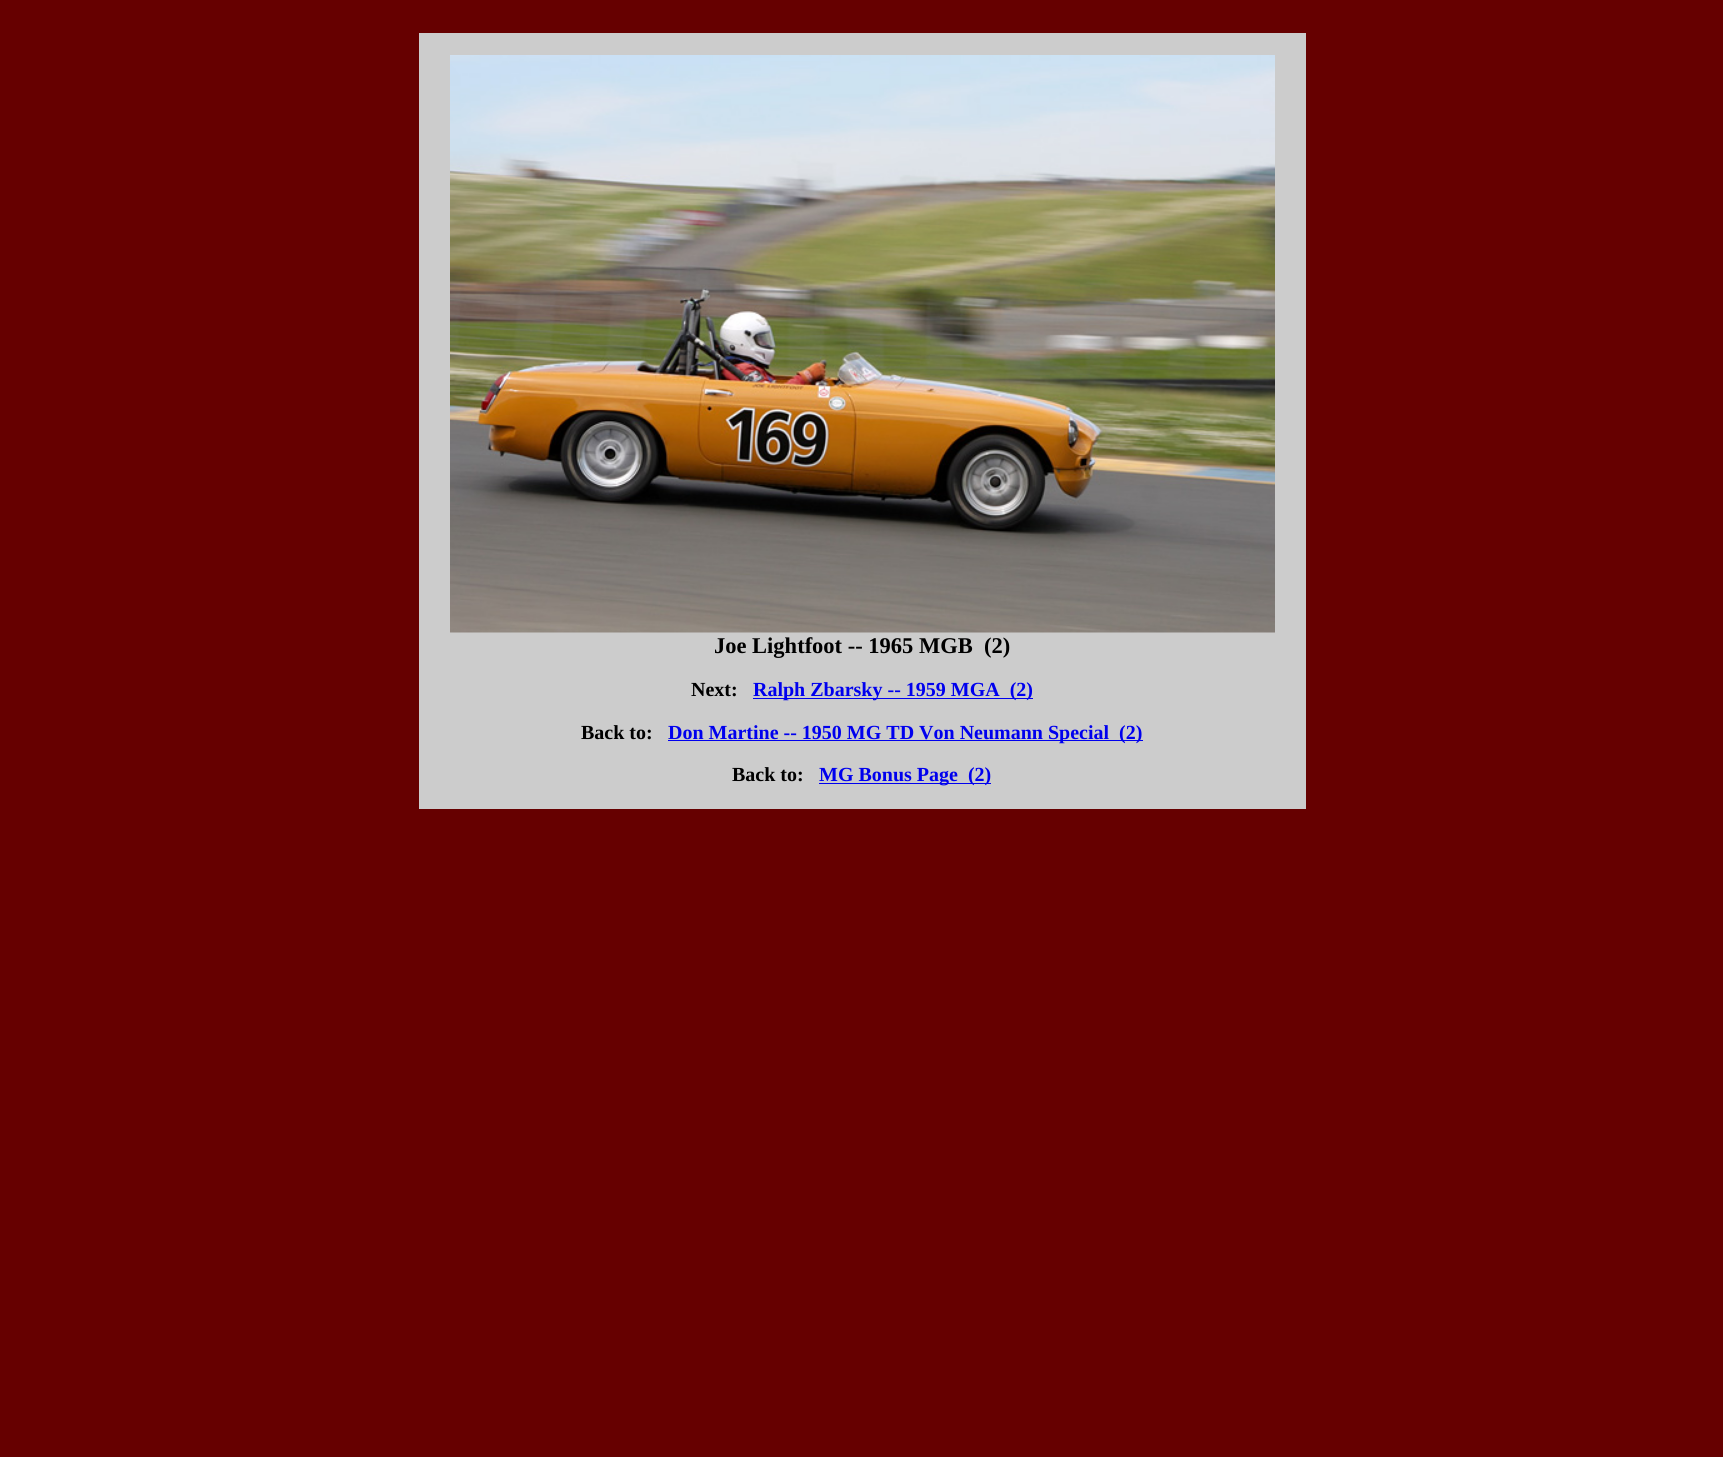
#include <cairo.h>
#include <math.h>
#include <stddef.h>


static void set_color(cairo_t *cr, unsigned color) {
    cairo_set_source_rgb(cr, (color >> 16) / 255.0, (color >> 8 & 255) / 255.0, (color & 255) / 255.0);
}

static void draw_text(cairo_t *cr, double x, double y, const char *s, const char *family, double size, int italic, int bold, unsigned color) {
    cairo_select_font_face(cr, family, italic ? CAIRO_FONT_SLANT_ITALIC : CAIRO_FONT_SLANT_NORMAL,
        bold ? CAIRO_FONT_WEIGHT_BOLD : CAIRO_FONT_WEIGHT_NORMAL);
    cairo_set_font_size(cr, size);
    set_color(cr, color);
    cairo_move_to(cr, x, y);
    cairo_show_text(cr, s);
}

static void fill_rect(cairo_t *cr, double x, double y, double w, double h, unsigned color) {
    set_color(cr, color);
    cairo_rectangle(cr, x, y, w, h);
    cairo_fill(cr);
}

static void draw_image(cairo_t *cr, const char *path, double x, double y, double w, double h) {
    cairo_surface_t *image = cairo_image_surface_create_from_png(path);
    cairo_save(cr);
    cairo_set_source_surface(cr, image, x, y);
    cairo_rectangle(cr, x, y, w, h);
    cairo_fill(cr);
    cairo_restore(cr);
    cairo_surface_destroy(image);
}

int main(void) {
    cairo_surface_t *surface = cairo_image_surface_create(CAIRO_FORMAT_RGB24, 1723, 1457);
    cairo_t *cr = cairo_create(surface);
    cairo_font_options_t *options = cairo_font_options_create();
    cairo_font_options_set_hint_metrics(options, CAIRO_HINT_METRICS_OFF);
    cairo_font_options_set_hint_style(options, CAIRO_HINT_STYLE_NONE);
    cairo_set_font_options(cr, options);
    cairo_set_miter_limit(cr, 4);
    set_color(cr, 0x660000);
    cairo_paint(cr);
    fill_rect(cr, 419, 33, 887, 776, 0xCCCCCC);
    draw_image(cr, "assets/img1.png", 450, 55, 825, 578);
    draw_text(cr, 714, 653, "Joe Lightfoot -- 1965 MGB  (2)", "Liberation Serif", 22.5, 0, 1, 0x000000);
    draw_text(cr, 691, 696, "Next:", "Liberation Serif", 20, 0, 1, 0x000000);
    fill_rect(cr, 753, 698, 280, 1, 0x0000EE);
    draw_text(cr, 753, 696, "Ralph Zbarsky -- 1959 MGA  (2)", "Liberation Serif", 20, 0, 1, 0x0000EE);
    draw_text(cr, 581, 739, "Back to:", "Liberation Serif", 20, 0, 1, 0x000000);
    fill_rect(cr, 668, 740, 475, 1, 0x0000EE);
    draw_text(cr, 668, 739, "Don Martine -- 1950 MG TD Von Neumann Special  (2)", "Liberation Serif", 20, 0, 1, 0x0000EE);
    draw_text(cr, 732, 781, "Back to:", "Liberation Serif", 20, 0, 1, 0x000000);
    fill_rect(cr, 819, 783, 172, 1, 0x0000EE);
    draw_text(cr, 819, 781, "MG Bonus Page  (2)", "Liberation Serif", 20, 0, 1, 0x0000EE);
    cairo_surface_write_to_png(surface, "output.png");
    cairo_font_options_destroy(options);
    cairo_destroy(cr);
    cairo_surface_destroy(surface);
    return 0;
}
